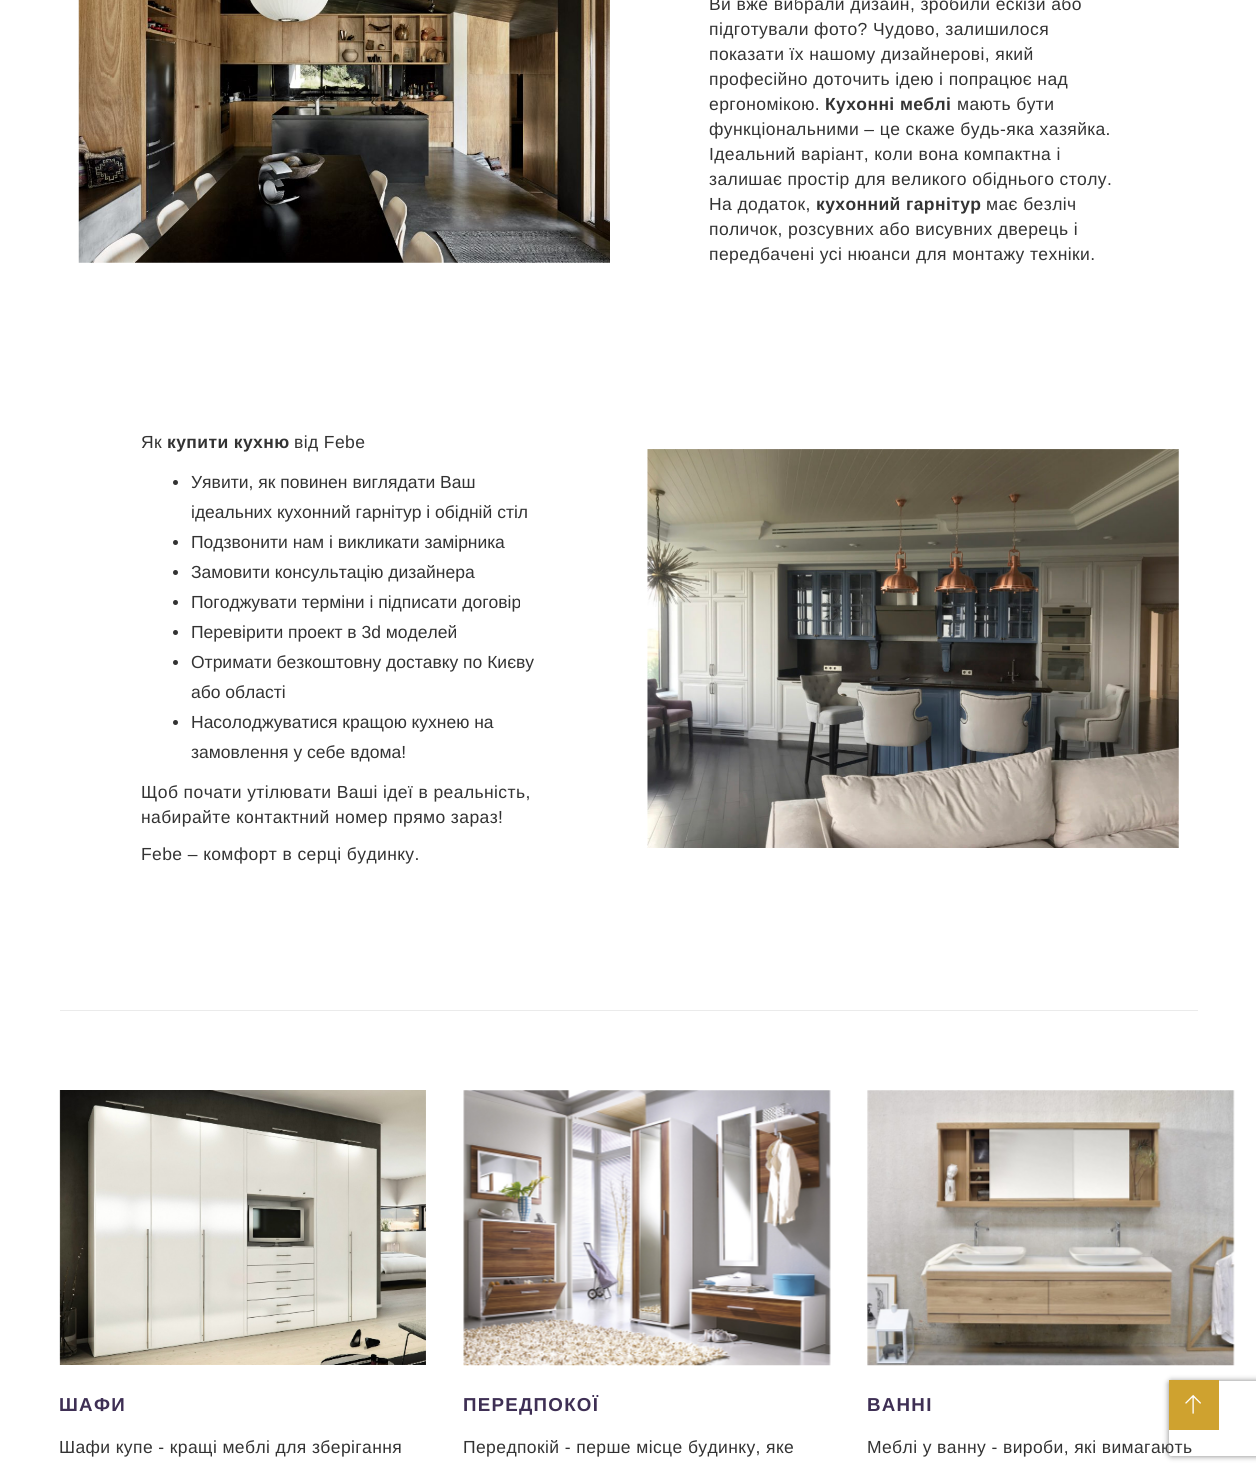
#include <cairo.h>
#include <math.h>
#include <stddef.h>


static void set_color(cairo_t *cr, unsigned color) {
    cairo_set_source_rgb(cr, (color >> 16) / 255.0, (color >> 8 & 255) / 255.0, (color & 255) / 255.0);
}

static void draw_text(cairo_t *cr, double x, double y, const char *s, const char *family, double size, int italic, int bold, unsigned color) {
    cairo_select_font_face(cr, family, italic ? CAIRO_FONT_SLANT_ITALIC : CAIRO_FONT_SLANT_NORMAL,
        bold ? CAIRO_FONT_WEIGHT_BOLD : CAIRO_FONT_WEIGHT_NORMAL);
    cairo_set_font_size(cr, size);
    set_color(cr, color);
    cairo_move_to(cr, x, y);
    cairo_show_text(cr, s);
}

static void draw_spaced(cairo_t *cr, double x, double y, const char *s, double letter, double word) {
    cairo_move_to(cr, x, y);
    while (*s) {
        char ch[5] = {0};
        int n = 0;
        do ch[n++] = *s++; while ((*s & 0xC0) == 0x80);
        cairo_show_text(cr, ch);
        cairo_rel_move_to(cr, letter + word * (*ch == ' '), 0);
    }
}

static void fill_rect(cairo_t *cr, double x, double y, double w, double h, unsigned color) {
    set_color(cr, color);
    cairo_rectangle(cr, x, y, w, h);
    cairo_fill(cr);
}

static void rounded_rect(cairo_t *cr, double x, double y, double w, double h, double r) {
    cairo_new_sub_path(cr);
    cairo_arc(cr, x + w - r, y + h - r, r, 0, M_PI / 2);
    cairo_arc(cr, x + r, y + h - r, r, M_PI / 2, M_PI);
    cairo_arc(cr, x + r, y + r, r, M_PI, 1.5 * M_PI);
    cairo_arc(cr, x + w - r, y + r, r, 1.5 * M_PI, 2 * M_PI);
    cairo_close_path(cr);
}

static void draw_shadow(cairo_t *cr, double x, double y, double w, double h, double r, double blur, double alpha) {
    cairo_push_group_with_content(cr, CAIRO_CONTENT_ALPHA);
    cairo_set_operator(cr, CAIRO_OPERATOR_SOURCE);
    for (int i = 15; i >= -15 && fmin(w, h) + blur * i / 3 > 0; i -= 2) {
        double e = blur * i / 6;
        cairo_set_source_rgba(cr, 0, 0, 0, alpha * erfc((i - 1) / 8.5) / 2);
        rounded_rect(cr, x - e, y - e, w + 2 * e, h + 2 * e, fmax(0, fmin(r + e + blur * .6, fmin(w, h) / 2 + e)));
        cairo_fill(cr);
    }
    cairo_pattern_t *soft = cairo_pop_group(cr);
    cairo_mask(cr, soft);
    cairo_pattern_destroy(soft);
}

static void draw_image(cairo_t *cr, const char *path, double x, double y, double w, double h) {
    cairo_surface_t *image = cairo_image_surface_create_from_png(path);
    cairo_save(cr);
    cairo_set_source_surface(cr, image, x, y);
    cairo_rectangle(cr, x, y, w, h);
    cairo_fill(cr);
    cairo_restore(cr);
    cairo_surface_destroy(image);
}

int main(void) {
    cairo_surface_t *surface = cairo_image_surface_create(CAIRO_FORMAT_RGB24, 1256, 1473);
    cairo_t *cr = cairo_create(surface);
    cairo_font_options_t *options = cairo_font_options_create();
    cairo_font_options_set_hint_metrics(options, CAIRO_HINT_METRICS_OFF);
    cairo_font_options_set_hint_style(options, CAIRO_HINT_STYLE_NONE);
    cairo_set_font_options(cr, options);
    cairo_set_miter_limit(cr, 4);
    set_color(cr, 0xFFFFFF);
    cairo_paint(cr);
    draw_image(cr, "assets/img1.png", 78, 0, 532, 263);
    cairo_select_font_face(cr, "Liberation Sans", CAIRO_FONT_SLANT_NORMAL, CAIRO_FONT_WEIGHT_NORMAL);
    cairo_set_font_size(cr, 17.5);
    set_color(cr, 0x333333);
    draw_spaced(cr, 709, 10, "Ви вже вибрали дизайн, зробили ескізи або", 0.4, 0);
    draw_spaced(cr, 709, 35, "підготували фото? Чудово, залишилося", 0.4, 0);
    draw_spaced(cr, 709, 60, "показати їх нашому дизайнерові, який", 0.4, 0);
    draw_spaced(cr, 709, 85, "професійно доточить ідею і попрацює над", 0.4, 0);
    draw_spaced(cr, 709, 110, "ергономікою.", 0.4, 0);
    cairo_select_font_face(cr, "Liberation Sans", CAIRO_FONT_SLANT_NORMAL, CAIRO_FONT_WEIGHT_BOLD);
    draw_spaced(cr, 825, 110, "Кухонні меблі", 0.4, 0);
    cairo_select_font_face(cr, "Liberation Sans", CAIRO_FONT_SLANT_NORMAL, CAIRO_FONT_WEIGHT_NORMAL);
    draw_spaced(cr, 957, 110, "мають бути", 0.4, 0);
    draw_spaced(cr, 709, 135, "функціональними – це скаже будь-яка хазяйка.", 0.4, 0);
    draw_spaced(cr, 709, 160, "Ідеальний варіант, коли вона компактна і", 0.4, 0);
    draw_spaced(cr, 709, 185, "залишає простір для великого обіднього столу.", 0.4, 0);
    draw_spaced(cr, 709, 210, "На додаток,", 0.4, 0);
    cairo_select_font_face(cr, "Liberation Sans", CAIRO_FONT_SLANT_NORMAL, CAIRO_FONT_WEIGHT_BOLD);
    draw_spaced(cr, 816, 210, "кухонний гарнітур", 0.4, 0);
    cairo_select_font_face(cr, "Liberation Sans", CAIRO_FONT_SLANT_NORMAL, CAIRO_FONT_WEIGHT_NORMAL);
    draw_spaced(cr, 986, 210, "має безліч", 0.4, 0);
    draw_spaced(cr, 709, 235, "поличок, розсувних або висувних дверець і", 0.4, 0);
    draw_spaced(cr, 709, 260, "передбачені усі нюанси для монтажу техніки.", 0.4, 0);
    draw_spaced(cr, 141, 448, "Як", 0.4, 0);
    cairo_select_font_face(cr, "Liberation Sans", CAIRO_FONT_SLANT_NORMAL, CAIRO_FONT_WEIGHT_BOLD);
    draw_spaced(cr, 167, 448, "купити кухню", 0.4, 0);
    cairo_select_font_face(cr, "Liberation Sans", CAIRO_FONT_SLANT_NORMAL, CAIRO_FONT_WEIGHT_NORMAL);
    draw_spaced(cr, 294, 448, "від Febe", 0.4, 0);
    cairo_new_path(cr);
    cairo_arc(cr, 175.5, 482.5, 2.5, 0, 2 * M_PI);
    cairo_fill(cr);
    draw_text(cr, 191, 488, "Уявити, як повинен виглядати Ваш", "Liberation Sans", 17.5, 0, 0, 0x333333);
    draw_text(cr, 191, 518, "ідеальних кухонний гарнітур і обідній стіл", "Liberation Sans", 17.5, 0, 0, 0x333333);
    cairo_new_path(cr);
    cairo_arc(cr, 175.5, 542.5, 2.5, 0, 2 * M_PI);
    cairo_fill(cr);
    draw_text(cr, 191, 548, "Подзвонити нам і викликати замірника", "Liberation Sans", 17.5, 0, 0, 0x333333);
    cairo_new_path(cr);
    cairo_arc(cr, 175.5, 572.5, 2.5, 0, 2 * M_PI);
    cairo_fill(cr);
    draw_text(cr, 191, 578, "Замовити консультацію дизайнера", "Liberation Sans", 17.5, 0, 0, 0x333333);
    cairo_new_path(cr);
    cairo_arc(cr, 175.5, 602.5, 2.5, 0, 2 * M_PI);
    cairo_fill(cr);
    draw_text(cr, 191, 608, "Погоджувати терміни і підписати договір", "Liberation Sans", 17.5, 0, 0, 0x333333);
    cairo_new_path(cr);
    cairo_arc(cr, 175.5, 632.5, 2.5, 0, 2 * M_PI);
    cairo_fill(cr);
    draw_text(cr, 191, 638, "Перевірити проект в 3d моделей", "Liberation Sans", 17.5, 0, 0, 0x333333);
    cairo_new_path(cr);
    cairo_arc(cr, 175.5, 662.5, 2.5, 0, 2 * M_PI);
    cairo_fill(cr);
    draw_text(cr, 191, 668, "Отримати безкоштовну доставку по Києву", "Liberation Sans", 17.5, 0, 0, 0x333333);
    draw_text(cr, 191, 698, "або області", "Liberation Sans", 17.5, 0, 0, 0x333333);
    cairo_new_path(cr);
    cairo_arc(cr, 175.5, 722.5, 2.5, 0, 2 * M_PI);
    cairo_fill(cr);
    draw_text(cr, 191, 728, "Насолоджуватися кращою кухнею на", "Liberation Sans", 17.5, 0, 0, 0x333333);
    draw_text(cr, 191, 758, "замовлення у себе вдома!", "Liberation Sans", 17.5, 0, 0, 0x333333);
    draw_spaced(cr, 141, 798, "Щоб почати утілювати Ваші ідеї в реальність,", 0.4, 0);
    draw_spaced(cr, 141, 823, "набирайте контактний номер прямо зараз!", 0.4, 0);
    draw_spaced(cr, 141, 860, "Febe – комфорт в серці будинку.", 0.4, 0);
    draw_image(cr, "assets/img2.png", 647, 449, 532, 399);
    fill_rect(cr, 60, 1010, 1138, 1, 0xEBEBEB);
    draw_image(cr, "assets/img3.png", 59, 1090, 367, 275);
    cairo_select_font_face(cr, "Liberation Sans", CAIRO_FONT_SLANT_NORMAL, CAIRO_FONT_WEIGHT_BOLD);
    cairo_set_font_size(cr, 18.75);
    set_color(cr, 0x3E2F54);
    draw_spaced(cr, 59, 1411, "ШАФИ", 1.25, 0);
    cairo_select_font_face(cr, "Liberation Sans", CAIRO_FONT_SLANT_NORMAL, CAIRO_FONT_WEIGHT_NORMAL);
    cairo_set_font_size(cr, 17.5);
    set_color(cr, 0x333333);
    draw_spaced(cr, 59, 1453, "Шафи купе - кращі меблі для зберігання", 0.4, 0);
    draw_image(cr, "assets/img4.png", 463, 1090, 368, 276);
    cairo_select_font_face(cr, "Liberation Sans", CAIRO_FONT_SLANT_NORMAL, CAIRO_FONT_WEIGHT_BOLD);
    cairo_set_font_size(cr, 18.75);
    set_color(cr, 0x3E2F54);
    draw_spaced(cr, 463, 1411, "ПЕРЕДПОКОЇ", 1.25, 0);
    cairo_select_font_face(cr, "Liberation Sans", CAIRO_FONT_SLANT_NORMAL, CAIRO_FONT_WEIGHT_NORMAL);
    cairo_set_font_size(cr, 17.5);
    set_color(cr, 0x333333);
    draw_spaced(cr, 463, 1453, "Передпокій - перше місце будинку, яке", 0.4, 0);
    draw_image(cr, "assets/img5.png", 867, 1090, 368, 276);
    cairo_select_font_face(cr, "Liberation Sans", CAIRO_FONT_SLANT_NORMAL, CAIRO_FONT_WEIGHT_BOLD);
    cairo_set_font_size(cr, 18.75);
    set_color(cr, 0x3E2F54);
    draw_spaced(cr, 867, 1411, "ВАННІ", 1.25, 0);
    cairo_select_font_face(cr, "Liberation Sans", CAIRO_FONT_SLANT_NORMAL, CAIRO_FONT_WEIGHT_NORMAL);
    cairo_set_font_size(cr, 17.5);
    set_color(cr, 0x333333);
    draw_spaced(cr, 867, 1453, "Меблі у ванну - вироби, які вимагають", 0.4, 0);
    cairo_save(cr);
    cairo_set_fill_rule(cr, CAIRO_FILL_RULE_EVEN_ODD);
    cairo_new_path(cr);
    cairo_move_to(cr, 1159, 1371);
    cairo_line_to(cr, 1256, 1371);
    cairo_line_to(cr, 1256, 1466);
    cairo_line_to(cr, 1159, 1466);
    cairo_close_path(cr);
    cairo_move_to(cr, 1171.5, 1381);
    cairo_line_to(cr, 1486.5, 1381);
    cairo_curve_to(cr, 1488, 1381, 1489, 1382, 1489, 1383.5);
    cairo_line_to(cr, 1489, 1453.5);
    cairo_curve_to(cr, 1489, 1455, 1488, 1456, 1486.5, 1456);
    cairo_line_to(cr, 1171.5, 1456);
    cairo_curve_to(cr, 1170, 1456, 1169, 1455, 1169, 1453.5);
    cairo_line_to(cr, 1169, 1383.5);
    cairo_curve_to(cr, 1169, 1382, 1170, 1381, 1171.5, 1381);
    cairo_close_path(cr);
    cairo_clip(cr);
    set_color(cr, 0x808080);
    draw_shadow(cr, 1169, 1381, 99, 75, 2.5, 3, 1);
    cairo_restore(cr);
    fill_rect(cr, 1169, 1380, 50, 50, 0xCFA22F);
    draw_image(cr, "assets/img6.png", 1185, 1394, 16, 20);
    cairo_surface_write_to_png(surface, "output.png");
    cairo_font_options_destroy(options);
    cairo_destroy(cr);
    cairo_surface_destroy(surface);
    return 0;
}
